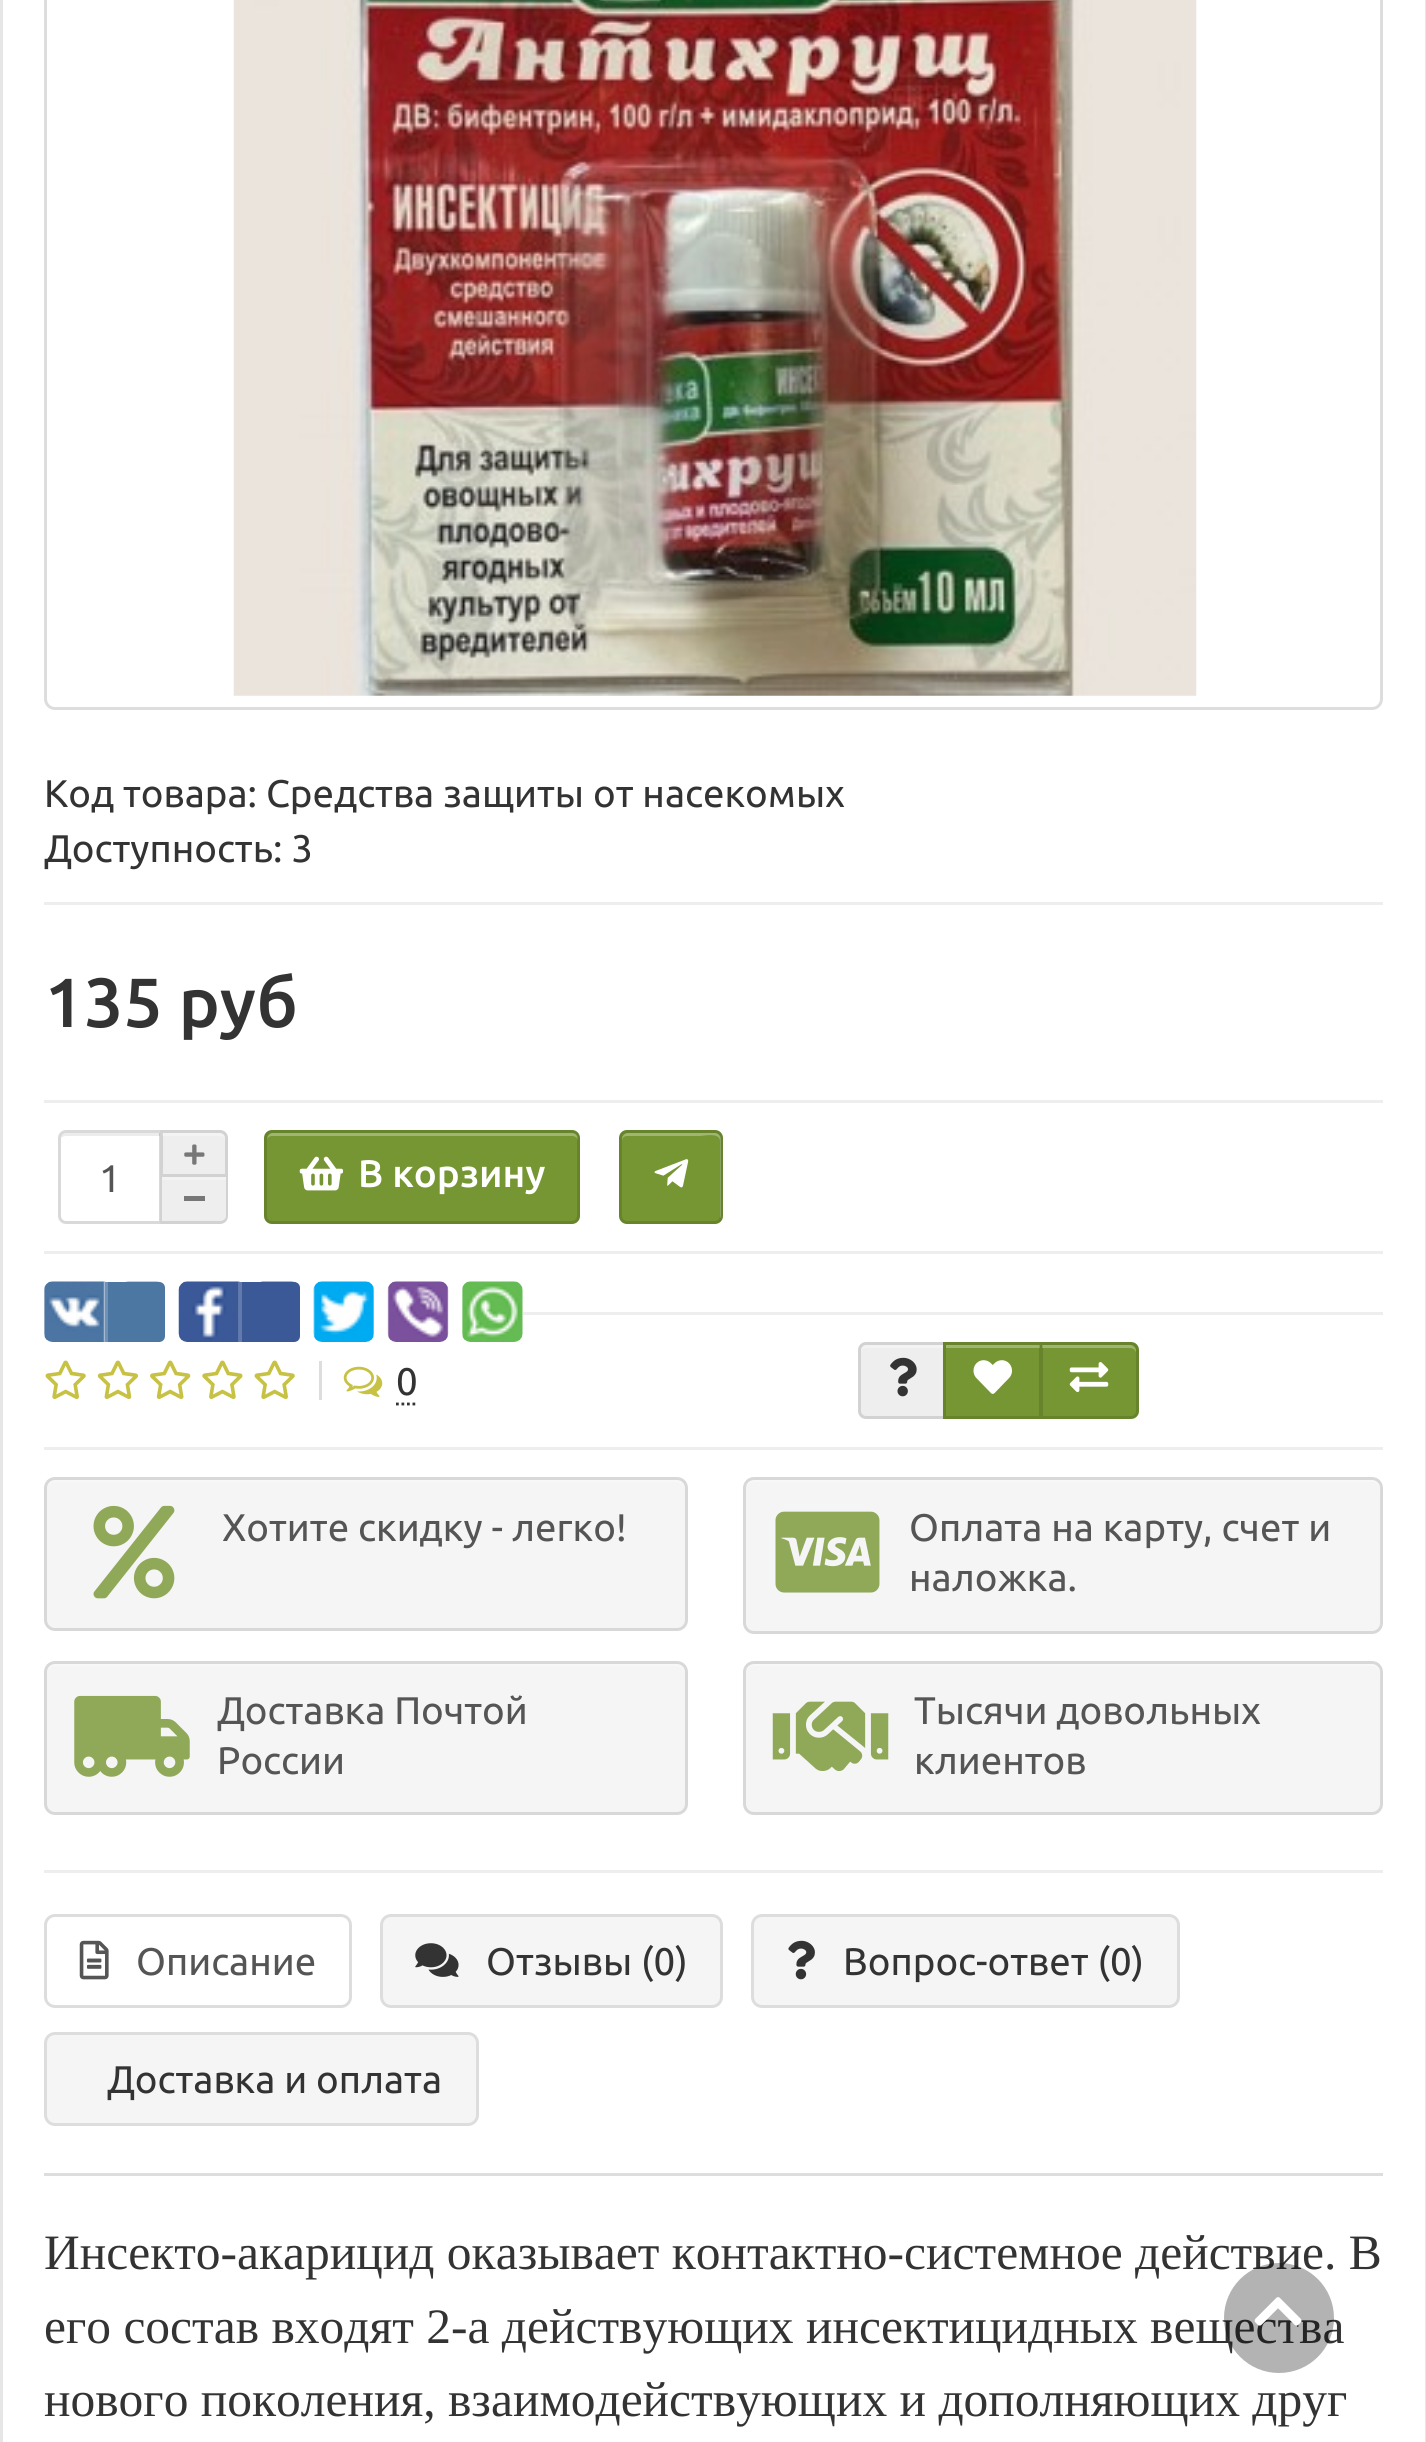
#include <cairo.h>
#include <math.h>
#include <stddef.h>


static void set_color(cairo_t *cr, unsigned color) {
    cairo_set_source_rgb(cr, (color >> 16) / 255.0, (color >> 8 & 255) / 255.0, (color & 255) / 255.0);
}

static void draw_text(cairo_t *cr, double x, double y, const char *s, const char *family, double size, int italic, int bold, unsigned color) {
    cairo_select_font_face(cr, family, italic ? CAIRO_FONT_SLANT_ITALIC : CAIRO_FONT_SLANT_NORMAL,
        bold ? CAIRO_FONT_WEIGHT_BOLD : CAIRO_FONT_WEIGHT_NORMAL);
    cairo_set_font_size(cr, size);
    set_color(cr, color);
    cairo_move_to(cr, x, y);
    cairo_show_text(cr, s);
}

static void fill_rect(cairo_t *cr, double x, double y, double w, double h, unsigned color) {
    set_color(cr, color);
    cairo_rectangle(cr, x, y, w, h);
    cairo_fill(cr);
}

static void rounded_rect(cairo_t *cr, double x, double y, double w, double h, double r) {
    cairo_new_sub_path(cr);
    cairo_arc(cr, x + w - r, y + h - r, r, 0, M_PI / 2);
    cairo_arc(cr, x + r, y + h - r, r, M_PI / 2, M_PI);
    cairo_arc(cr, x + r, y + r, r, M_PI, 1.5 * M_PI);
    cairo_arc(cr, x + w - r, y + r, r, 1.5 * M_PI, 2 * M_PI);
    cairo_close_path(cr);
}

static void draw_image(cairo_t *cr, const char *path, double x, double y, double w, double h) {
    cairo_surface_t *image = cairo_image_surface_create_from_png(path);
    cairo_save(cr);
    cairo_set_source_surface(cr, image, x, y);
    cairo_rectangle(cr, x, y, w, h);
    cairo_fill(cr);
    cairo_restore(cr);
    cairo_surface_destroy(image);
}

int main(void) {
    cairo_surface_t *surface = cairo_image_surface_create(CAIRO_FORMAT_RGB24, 1426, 2442);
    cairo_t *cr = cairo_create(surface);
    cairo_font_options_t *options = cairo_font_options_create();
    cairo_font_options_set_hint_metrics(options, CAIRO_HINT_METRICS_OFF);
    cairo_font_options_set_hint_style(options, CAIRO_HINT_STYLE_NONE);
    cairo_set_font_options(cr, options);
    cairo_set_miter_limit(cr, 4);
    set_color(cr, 0xFFFFFF);
    cairo_paint(cr);
    fill_rect(cr, 1425, 0, 1, 2442, 0xE6E6E6);
    fill_rect(cr, 0, 0, 3, 2442, 0xE6E6E6);
    rounded_rect(cr, 45.5, -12.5, 1336, 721, 9.5);
    set_color(cr, 0xDDDDDD);
    cairo_set_line_width(cr, 3);
    cairo_stroke(cr);
    draw_image(cr, "assets/img1.png", 233, 0, 964, 696);
    draw_text(cr, 44, 807, "Код товара: Средства защиты от насекомых", "Ubuntu", 38.5, 0, 0, 0x333333);
    draw_text(cr, 44, 862, "Доступность: 3", "Ubuntu", 38.5, 0, 0, 0x333333);
    fill_rect(cr, 44, 902, 1339, 3, 0xEEEEEE);
    draw_text(cr, 44, 1027, "135 руб", "Ubuntu Medium", 69.5, 0, 0, 0x333333);
    fill_rect(cr, 44, 1100, 1339, 3, 0xEEEEEE);
    set_color(cr, 0xECECEC);
    cairo_new_path(cr);
    cairo_move_to(cr, 66, 1136);
    cairo_line_to(cr, 160, 1136);
    cairo_line_to(cr, 160, 1133);
    cairo_line_to(cr, 67, 1133);
    cairo_curve_to(cr, 64, 1133, 61, 1135, 61, 1138);
    cairo_curve_to(cr, 62, 1137, 64, 1136, 66, 1136);
    cairo_close_path(cr);
    cairo_fill(cr);
    cairo_new_path(cr);
    cairo_move_to(cr, 66, 1131.5);
    cairo_line_to(cr, 160.5, 1131.5);
    cairo_line_to(cr, 160.5, 1222.5);
    cairo_line_to(cr, 66, 1222.5);
    cairo_curve_to(cr, 62.5, 1222.5, 59.5, 1219.5, 59.5, 1216);
    cairo_line_to(cr, 59.5, 1138);
    cairo_curve_to(cr, 59.5, 1134.5, 62.5, 1131.5, 66, 1131.5);
    cairo_close_path(cr);
    cairo_set_source_rgba(cr, 0, 0, 0, 0.15);
    cairo_stroke(cr);
    draw_text(cr, 99, 1192, "1", "Ubuntu", 38.5, 0, 0, 0x555555);
    set_color(cr, 0xEEEEEE);
    cairo_new_path(cr);
    cairo_move_to(cr, 160, 1130);
    cairo_line_to(cr, 220, 1130);
    cairo_curve_to(cr, 224.5, 1130, 228, 1133.5, 228, 1138);
    cairo_line_to(cr, 228, 1177);
    cairo_line_to(cr, 160, 1177);
    cairo_close_path(cr);
    cairo_fill(cr);
    set_color(cr, 0xF3F3F3);
    cairo_new_path(cr);
    cairo_move_to(cr, 162, 1136);
    cairo_line_to(cr, 220, 1136);
    cairo_curve_to(cr, 223, 1136, 226, 1138, 226, 1141);
    cairo_line_to(cr, 226, 1139);
    cairo_curve_to(cr, 226, 1136, 223, 1133, 220, 1133);
    cairo_line_to(cr, 162, 1133);
    cairo_close_path(cr);
    cairo_fill(cr);
    cairo_new_path(cr);
    cairo_move_to(cr, 161.5, 1131.5);
    cairo_line_to(cr, 220, 1131.5);
    cairo_curve_to(cr, 223.5, 1131.5, 226.5, 1134.5, 226.5, 1138);
    cairo_line_to(cr, 226.5, 1175.5);
    cairo_line_to(cr, 161.5, 1175.5);
    cairo_close_path(cr);
    cairo_set_source_rgba(cr, 0, 0, 0, 0.12);
    cairo_stroke(cr);
    draw_image(cr, "assets/img2.png", 184, 1144, 21, 21);
    set_color(cr, 0xEEEEEE);
    cairo_new_path(cr);
    cairo_move_to(cr, 160, 1177);
    cairo_line_to(cr, 228, 1177);
    cairo_line_to(cr, 228, 1216);
    cairo_curve_to(cr, 228, 1220.5, 224.5, 1224, 220, 1224);
    cairo_line_to(cr, 160, 1224);
    cairo_close_path(cr);
    cairo_fill(cr);
    fill_rect(cr, 162, 1177, 64, 3, 0xF3F3F3);
    cairo_set_source_rgba(cr, 0, 0, 0, 0.12);
    cairo_set_fill_rule(cr, CAIRO_FILL_RULE_EVEN_ODD);
    cairo_new_path(cr);
    cairo_move_to(cr, 160, 1177);
    cairo_line_to(cr, 228, 1177);
    cairo_line_to(cr, 228, 1216);
    cairo_curve_to(cr, 228, 1220, 225, 1224, 220, 1224);
    cairo_line_to(cr, 160, 1224);
    cairo_close_path(cr);
    cairo_move_to(cr, 162, 1177);
    cairo_line_to(cr, 226, 1177);
    cairo_line_to(cr, 226, 1216);
    cairo_curve_to(cr, 226, 1219, 223, 1221, 220, 1221);
    cairo_line_to(cr, 162, 1221);
    cairo_close_path(cr);
    cairo_fill(cr);
    fill_rect(cr, 184, 1196, 21, 5, 0x777777);
    set_color(cr, 0x759632);
    rounded_rect(cr, 264, 1130, 316, 94, 8);
    cairo_fill(cr);
    set_color(cr, 0x9EB670);
    cairo_set_fill_rule(cr, CAIRO_FILL_RULE_WINDING);
    cairo_new_path(cr);
    cairo_move_to(cr, 272, 1136);
    cairo_line_to(cr, 572, 1136);
    cairo_curve_to(cr, 575, 1136, 578, 1138, 578, 1141);
    cairo_curve_to(cr, 578, 1137, 577, 1133, 572, 1133);
    cairo_line_to(cr, 272, 1133);
    cairo_curve_to(cr, 268, 1134, 267, 1138, 267, 1141);
    cairo_curve_to(cr, 267, 1138, 269, 1136, 272, 1136);
    cairo_close_path(cr);
    cairo_fill(cr);
    rounded_rect(cr, 265.5, 1131.5, 313, 91, 6.5);
    cairo_set_source_rgba(cr, 0, 0, 0, 0.12);
    cairo_stroke(cr);
    draw_image(cr, "assets/img3.png", 299, 1156, 45, 35);
    draw_text(cr, 358, 1187, "В корзину", "Ubuntu Medium", 38.5, 0, 0, 0xFFFFFF);
    set_color(cr, 0x759632);
    rounded_rect(cr, 619, 1130, 104, 94, 8);
    cairo_fill(cr);
    set_color(cr, 0x9EB670);
    cairo_new_path(cr);
    cairo_move_to(cr, 627, 1136);
    cairo_line_to(cr, 700, 1136);
    cairo_curve_to(cr, 703, 1136, 720, 1132, 720, 1141);
    cairo_line_to(cr, 720, 1218);
    cairo_curve_to(cr, 721, 1217, 721, 1216, 721, 1215);
    cairo_line_to(cr, 721, 1139);
    cairo_curve_to(cr, 721, 1136, 718, 1133, 715, 1133);
    cairo_line_to(cr, 628, 1133);
    cairo_curve_to(cr, 625, 1133, 622, 1136, 622, 1139);
    cairo_line_to(cr, 622, 1141);
    cairo_curve_to(cr, 622, 1138, 624, 1136, 627, 1136);
    cairo_close_path(cr);
    cairo_fill(cr);
    rounded_rect(cr, 620.5, 1131.5, 101, 91, 6.5);
    cairo_set_source_rgba(cr, 0, 0, 0, 0.12);
    cairo_stroke(cr);
    draw_image(cr, "assets/img4.png", 654, 1159, 35, 29);
    fill_rect(cr, 44, 1251, 1339, 3, 0xEEEEEE);
    draw_image(cr, "assets/img5.png", 44, 1281, 121, 61);
    set_color(cr, 0x4C77A2);
    cairo_new_path(cr);
    cairo_move_to(cr, 105, 1282);
    cairo_line_to(cr, 159, 1282);
    cairo_curve_to(cr, 162.5, 1282, 165, 1284.5, 165, 1288);
    cairo_line_to(cr, 165, 1336);
    cairo_curve_to(cr, 165, 1339.5, 162.5, 1342, 159, 1342);
    cairo_line_to(cr, 105, 1342);
    cairo_close_path(cr);
    cairo_fill(cr);
    fill_rect(cr, 105, 1282, 3, 60, 0x7092B5);
    draw_image(cr, "assets/img6.png", 178, 1281, 122, 61);
    set_color(cr, 0x3B5997);
    cairo_new_path(cr);
    cairo_move_to(cr, 239, 1282);
    cairo_line_to(cr, 294, 1282);
    cairo_curve_to(cr, 297.5, 1282, 300, 1284.5, 300, 1288);
    cairo_line_to(cr, 300, 1336);
    cairo_curve_to(cr, 300, 1339.5, 297.5, 1342, 294, 1342);
    cairo_line_to(cr, 239, 1342);
    cairo_close_path(cr);
    cairo_fill(cr);
    fill_rect(cr, 239, 1282, 3, 60, 0x627AAC);
    draw_image(cr, "assets/img7.png", 313, 1281, 61, 61);
    draw_image(cr, "assets/img8.png", 387, 1281, 62, 61);
    draw_image(cr, "assets/img9.png", 462, 1281, 61, 61);
    fill_rect(cr, 523, 1312, 860, 3, 0xEEEEEE);
    draw_image(cr, "assets/img10.png", 45, 1360, 41, 39);
    draw_image(cr, "assets/img11.png", 97, 1360, 41, 39);
    draw_image(cr, "assets/img12.png", 150, 1360, 41, 39);
    draw_image(cr, "assets/img13.png", 202, 1360, 41, 39);
    draw_image(cr, "assets/img10.png", 254, 1360, 41, 39);
    fill_rect(cr, 319, 1361, 3, 39, 0xDDDDDD);
    draw_image(cr, "assets/img14.png", 343, 1366, 40, 31);
    cairo_new_path(cr);
    cairo_move_to(cr, 396, 1404);
    cairo_line_to(cr, 418, 1404);
    set_color(cr, 0x333333);
    cairo_set_line_width(cr, 2.8);
    cairo_set_dash(cr, (double[]){2.75, 2.75}, 2, 0);
    cairo_stroke(cr);
    draw_text(cr, 396, 1395, "0", "Ubuntu", 38.5, 0, 0, 0x333333);
    set_color(cr, 0xEEEEEE);
    cairo_new_path(cr);
    cairo_move_to(cr, 866, 1342);
    cairo_line_to(cr, 946, 1342);
    cairo_line_to(cr, 946, 1419);
    cairo_line_to(cr, 866, 1419);
    cairo_curve_to(cr, 861.5, 1419, 858, 1415.5, 858, 1411);
    cairo_line_to(cr, 858, 1350);
    cairo_curve_to(cr, 858, 1345.5, 861.5, 1342, 866, 1342);
    cairo_close_path(cr);
    cairo_fill(cr);
    set_color(cr, 0xF3F3F3);
    cairo_new_path(cr);
    cairo_move_to(cr, 866, 1348);
    cairo_line_to(cr, 943, 1348);
    cairo_line_to(cr, 943, 1345);
    cairo_line_to(cr, 867, 1345);
    cairo_curve_to(cr, 864, 1345, 861, 1348, 861, 1351);
    cairo_line_to(cr, 861, 1353);
    cairo_curve_to(cr, 861, 1350, 863, 1348, 866, 1348);
    cairo_close_path(cr);
    cairo_fill(cr);
    cairo_new_path(cr);
    cairo_move_to(cr, 866, 1343.5);
    cairo_line_to(cr, 944.5, 1343.5);
    cairo_line_to(cr, 944.5, 1417.5);
    cairo_line_to(cr, 866, 1417.5);
    cairo_curve_to(cr, 862.5, 1417.5, 859.5, 1414.5, 859.5, 1411);
    cairo_line_to(cr, 859.5, 1350);
    cairo_curve_to(cr, 859.5, 1346.5, 862.5, 1343.5, 866, 1343.5);
    cairo_close_path(cr);
    cairo_set_source_rgba(cr, 0, 0, 0, 0.12);
    cairo_set_line_width(cr, 3);
    cairo_set_dash(cr, NULL, 0, 0);
    cairo_stroke(cr);
    draw_image(cr, "assets/img15.png", 890, 1357, 27, 40);
    fill_rect(cr, 943, 1342, 97, 77, 0x759632);
    fill_rect(cr, 946, 1345, 94, 3, 0x9EB670);
    cairo_rectangle(cr, 944.5, 1343.5, 96, 74);
    cairo_set_source_rgba(cr, 0, 0, 0, 0.12);
    cairo_stroke(cr);
    draw_image(cr, "assets/img16.png", 973, 1360, 39, 34);
    set_color(cr, 0x759632);
    cairo_new_path(cr);
    cairo_move_to(cr, 1040, 1342);
    cairo_line_to(cr, 1131, 1342);
    cairo_curve_to(cr, 1135.5, 1342, 1139, 1345.5, 1139, 1350);
    cairo_line_to(cr, 1139, 1411);
    cairo_curve_to(cr, 1139, 1415.5, 1135.5, 1419, 1131, 1419);
    cairo_line_to(cr, 1040, 1419);
    cairo_close_path(cr);
    cairo_fill(cr);
    set_color(cr, 0x9EB670);
    cairo_new_path(cr);
    cairo_move_to(cr, 1042, 1348);
    cairo_line_to(cr, 1130, 1348);
    cairo_curve_to(cr, 1133, 1348, 1136, 1350, 1136, 1353);
    cairo_line_to(cr, 1136, 1351);
    cairo_curve_to(cr, 1136, 1348, 1133, 1345, 1130, 1345);
    cairo_line_to(cr, 1042, 1345);
    cairo_close_path(cr);
    cairo_fill(cr);
    cairo_new_path(cr);
    cairo_move_to(cr, 1041.5, 1343.5);
    cairo_line_to(cr, 1131, 1343.5);
    cairo_curve_to(cr, 1134.5, 1343.5, 1137.5, 1346.5, 1137.5, 1350);
    cairo_line_to(cr, 1137.5, 1411);
    cairo_curve_to(cr, 1137.5, 1414.5, 1134.5, 1417.5, 1131, 1417.5);
    cairo_line_to(cr, 1041.5, 1417.5);
    cairo_close_path(cr);
    cairo_set_source_rgba(cr, 0, 0, 0, 0.12);
    cairo_stroke(cr);
    draw_image(cr, "assets/img17.png", 1069, 1362, 40, 31);
    fill_rect(cr, 44, 1447, 1339, 3, 0xEEEEEE);
    set_color(cr, 0xF5F5F5);
    rounded_rect(cr, 44, 1477, 644, 154, 11);
    cairo_fill(cr);
    set_color(cr, 0xF8F8F8);
    cairo_new_path(cr);
    cairo_move_to(cr, 55, 1482);
    cairo_line_to(cr, 676, 1482);
    cairo_curve_to(cr, 681, 1482, 685, 1486, 685, 1490);
    cairo_line_to(cr, 685, 1488);
    cairo_curve_to(cr, 685, 1484, 681, 1480, 677, 1480);
    cairo_line_to(cr, 55, 1480);
    cairo_curve_to(cr, 51, 1480, 47, 1484, 47, 1488);
    cairo_line_to(cr, 47, 1490);
    cairo_curve_to(cr, 47, 1486, 50, 1482, 55, 1482);
    cairo_close_path(cr);
    cairo_fill(cr);
    rounded_rect(cr, 45.5, 1478.5, 641, 151, 9.5);
    cairo_set_source_rgba(cr, 0, 0, 0, 0.12);
    cairo_stroke(cr);
    draw_image(cr, "assets/img18.png", 93, 1505, 82, 94);
    draw_text(cr, 222, 1541, "Хотите скидку - легко!", "Ubuntu", 38.5, 0, 0, 0x555555);
    set_color(cr, 0xF5F5F5);
    rounded_rect(cr, 743, 1477, 640, 157, 11);
    cairo_fill(cr);
    set_color(cr, 0xF8F8F8);
    cairo_new_path(cr);
    cairo_move_to(cr, 754, 1482);
    cairo_line_to(cr, 1372, 1482);
    cairo_curve_to(cr, 1377, 1482, 1380, 1486, 1380, 1490);
    cairo_line_to(cr, 1380, 1627);
    cairo_curve_to(cr, 1381, 1626, 1381, 1625, 1381, 1623);
    cairo_line_to(cr, 1381, 1488);
    cairo_curve_to(cr, 1381, 1484, 1377, 1480, 1373, 1480);
    cairo_line_to(cr, 753, 1480);
    cairo_curve_to(cr, 749, 1480, 745, 1484, 745, 1488);
    cairo_line_to(cr, 745, 1490);
    cairo_curve_to(cr, 745, 1486, 749, 1482, 754, 1482);
    cairo_close_path(cr);
    cairo_fill(cr);
    rounded_rect(cr, 744.5, 1478.5, 637, 154, 9.5);
    cairo_set_source_rgba(cr, 0, 0, 0, 0.12);
    cairo_stroke(cr);
    draw_image(cr, "assets/img19.png", 775, 1511, 105, 82);
    draw_text(cr, 909, 1541, "Оплата на карту, счет и", "Ubuntu", 38.5, 0, 0, 0x555555);
    draw_text(cr, 909, 1591, "наложка.", "Ubuntu", 38.5, 0, 0, 0x555555);
    set_color(cr, 0xF5F5F5);
    rounded_rect(cr, 44, 1661, 644, 154, 11);
    cairo_fill(cr);
    set_color(cr, 0xF8F8F8);
    cairo_new_path(cr);
    cairo_move_to(cr, 55, 1666);
    cairo_line_to(cr, 676, 1666);
    cairo_curve_to(cr, 681, 1666, 685, 1670, 685, 1675);
    cairo_line_to(cr, 685, 1672);
    cairo_curve_to(cr, 685, 1668, 681, 1664, 677, 1664);
    cairo_line_to(cr, 55, 1664);
    cairo_curve_to(cr, 51, 1664, 47, 1668, 47, 1672);
    cairo_line_to(cr, 47, 1675);
    cairo_curve_to(cr, 47, 1670, 50, 1666, 55, 1666);
    cairo_close_path(cr);
    cairo_fill(cr);
    rounded_rect(cr, 45.5, 1662.5, 641, 151, 9.5);
    cairo_set_source_rgba(cr, 0, 0, 0, 0.12);
    cairo_stroke(cr);
    draw_image(cr, "assets/img20.png", 74, 1695, 116, 82);
    draw_text(cr, 217, 1724, "Доставка Почтой", "Ubuntu", 38.5, 0, 0, 0x555555);
    draw_text(cr, 217, 1774, "России", "Ubuntu", 38.5, 0, 0, 0x555555);
    set_color(cr, 0xF5F5F5);
    rounded_rect(cr, 743, 1661, 640, 154, 11);
    cairo_fill(cr);
    set_color(cr, 0xF8F8F8);
    cairo_new_path(cr);
    cairo_move_to(cr, 754, 1666);
    cairo_line_to(cr, 1372, 1666);
    cairo_curve_to(cr, 1377, 1666, 1380, 1670, 1380, 1675);
    cairo_line_to(cr, 1380, 1808);
    cairo_curve_to(cr, 1381, 1807, 1381, 1805, 1381, 1804);
    cairo_line_to(cr, 1381, 1672);
    cairo_curve_to(cr, 1381, 1668, 1377, 1664, 1373, 1664);
    cairo_line_to(cr, 753, 1664);
    cairo_curve_to(cr, 749, 1664, 745, 1668, 745, 1672);
    cairo_line_to(cr, 745, 1675);
    cairo_curve_to(cr, 745, 1670, 749, 1666, 754, 1666);
    cairo_close_path(cr);
    cairo_fill(cr);
    rounded_rect(cr, 744.5, 1662.5, 637, 151, 9.5);
    cairo_set_source_rgba(cr, 0, 0, 0, 0.12);
    cairo_stroke(cr);
    draw_image(cr, "assets/img21.png", 772, 1701, 117, 70);
    draw_text(cr, 914, 1724, "Тысячи довольных", "Ubuntu", 38.5, 0, 0, 0x555555);
    draw_text(cr, 914, 1774, "клиентов", "Ubuntu", 38.5, 0, 0, 0x555555);
    fill_rect(cr, 44, 1870, 1339, 3, 0xEEEEEE);
    fill_rect(cr, 44, 2173, 1339, 3, 0xDDDDDD);
    rounded_rect(cr, 45.5, 1915.5, 305, 91, 9.5);
    cairo_stroke(cr);
    draw_image(cr, "assets/img22.png", 79, 1940, 30, 40);
    draw_text(cr, 136, 1975, "Описание", "Ubuntu", 38.5, 0, 0, 0x555555);
    set_color(cr, 0xF5F5F5);
    rounded_rect(cr, 381.5, 1915.5, 340, 91, 9.5);
    cairo_fill_preserve(cr);
    set_color(cr, 0xDDDDDD);
    cairo_stroke(cr);
    draw_image(cr, "assets/img23.png", 415, 1943, 44, 34);
    draw_text(cr, 486, 1975, "Отзывы (0)", "Ubuntu", 38.5, 0, 0, 0x333333);
    set_color(cr, 0xF5F5F5);
    rounded_rect(cr, 752.5, 1915.5, 426, 91, 9.5);
    cairo_fill_preserve(cr);
    set_color(cr, 0xDDDDDD);
    cairo_stroke(cr);
    draw_image(cr, "assets/img24.png", 788, 1940, 27, 40);
    draw_text(cr, 843, 1975, "Вопрос-ответ (0)", "Ubuntu", 38.5, 0, 0, 0x333333);
    set_color(cr, 0xF5F5F5);
    rounded_rect(cr, 45.5, 2033.5, 432, 91, 9.5);
    cairo_fill_preserve(cr);
    set_color(cr, 0xDDDDDD);
    cairo_stroke(cr);
    draw_text(cr, 107, 2093, "Доставка и оплата", "Ubuntu", 38.5, 0, 0, 0x333333);
    draw_text(cr, 44, 2269, "Инсекто-акарицид оказывает контактно-системное действие. В", "Liberation Serif", 49.5, 0, 0, 0x333333);
    draw_text(cr, 44, 2343, "его состав входят 2-а действующих инсектицидных вещества", "Liberation Serif", 49.5, 0, 0, 0x333333);
    draw_text(cr, 44, 2416, "нового поколения, взаимодействующих и дополняющих друг", "Liberation Serif", 49.5, 0, 0, 0x333333);
    cairo_set_source_rgba(cr, 0, 0, 0, 0.3);
    cairo_new_path(cr);
    cairo_arc(cr, 1279, 2318, 55, 0, 2 * M_PI);
    cairo_fill(cr);
    draw_image(cr, "assets/img25.png", 1254, 2297, 48, 29);
    cairo_surface_write_to_png(surface, "output.png");
    cairo_font_options_destroy(options);
    cairo_destroy(cr);
    cairo_surface_destroy(surface);
    return 0;
}
